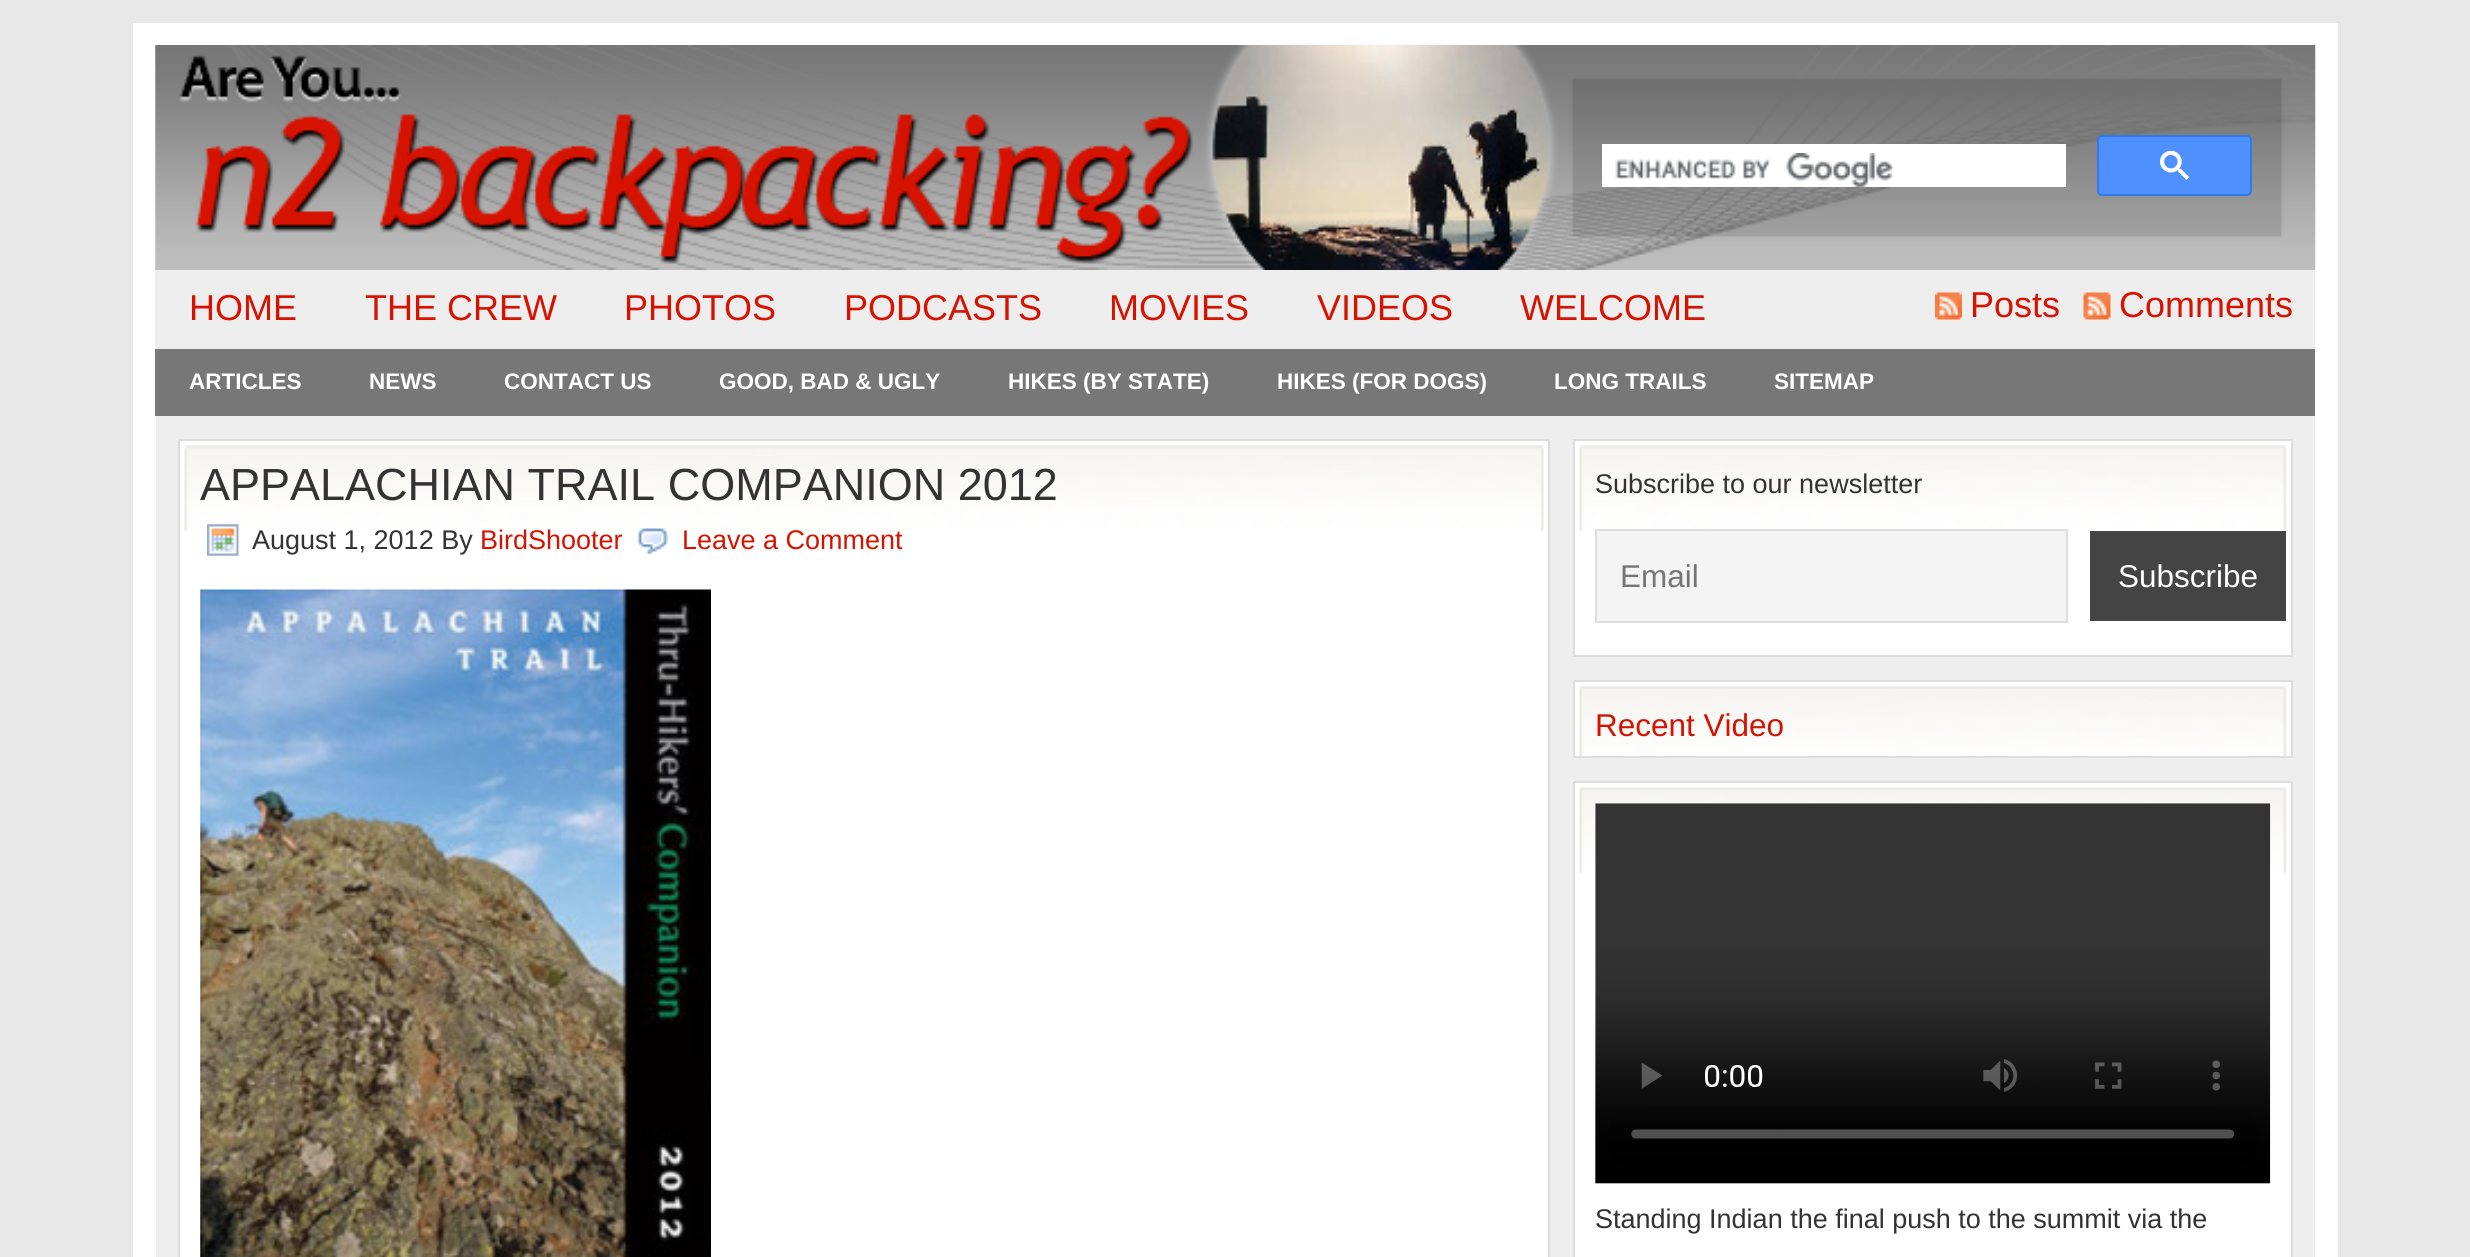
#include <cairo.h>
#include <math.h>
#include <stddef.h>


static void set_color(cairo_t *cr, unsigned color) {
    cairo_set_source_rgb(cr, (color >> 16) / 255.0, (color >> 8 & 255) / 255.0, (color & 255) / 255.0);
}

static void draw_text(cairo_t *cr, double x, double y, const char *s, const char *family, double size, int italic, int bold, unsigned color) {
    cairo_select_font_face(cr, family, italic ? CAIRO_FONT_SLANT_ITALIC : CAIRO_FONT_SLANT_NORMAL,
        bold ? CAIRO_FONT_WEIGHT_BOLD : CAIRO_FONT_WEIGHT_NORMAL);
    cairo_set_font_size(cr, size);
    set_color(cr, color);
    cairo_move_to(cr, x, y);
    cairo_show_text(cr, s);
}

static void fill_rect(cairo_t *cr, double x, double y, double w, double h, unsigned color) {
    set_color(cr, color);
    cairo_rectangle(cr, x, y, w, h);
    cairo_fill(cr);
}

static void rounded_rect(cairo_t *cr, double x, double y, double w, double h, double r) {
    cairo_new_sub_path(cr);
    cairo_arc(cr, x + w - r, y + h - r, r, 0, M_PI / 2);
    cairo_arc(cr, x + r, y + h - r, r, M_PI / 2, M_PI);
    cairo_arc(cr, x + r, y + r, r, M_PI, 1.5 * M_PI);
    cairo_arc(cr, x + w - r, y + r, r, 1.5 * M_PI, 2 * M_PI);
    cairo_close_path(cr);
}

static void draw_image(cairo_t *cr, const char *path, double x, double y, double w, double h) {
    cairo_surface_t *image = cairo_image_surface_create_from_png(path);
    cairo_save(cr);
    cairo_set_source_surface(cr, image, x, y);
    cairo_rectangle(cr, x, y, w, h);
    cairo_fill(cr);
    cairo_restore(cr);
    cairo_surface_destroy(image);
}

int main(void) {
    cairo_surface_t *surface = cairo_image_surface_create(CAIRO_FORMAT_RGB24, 2470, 1257);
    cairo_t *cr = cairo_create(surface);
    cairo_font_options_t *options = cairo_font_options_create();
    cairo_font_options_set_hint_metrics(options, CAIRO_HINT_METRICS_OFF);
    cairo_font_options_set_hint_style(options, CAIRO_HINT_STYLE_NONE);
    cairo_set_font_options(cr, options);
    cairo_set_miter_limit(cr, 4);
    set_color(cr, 0xE7E7E7);
    cairo_paint(cr);
    fill_rect(cr, 156, 416, 2159, 841, 0xEEEEEE);
    cairo_rectangle(cr, 144.5, 34.5, 2182, 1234);
    set_color(cr, 0xFFFFFF);
    cairo_set_line_width(cr, 23);
    cairo_stroke(cr);
    draw_image(cr, "assets/img1.png", 155, 45, 2161, 225);
    fill_rect(cr, 1602, 144, 464, 43, 0xFFFFFF);
    draw_image(cr, "assets/img2.png", 1615, 153, 278, 34);
    set_color(cr, 0x4D90FE);
    rounded_rect(cr, 2098, 136, 153, 59, 4);
    cairo_fill_preserve(cr);
    set_color(cr, 0x3079ED);
    cairo_set_line_width(cr, 2);
    cairo_stroke(cr);
    draw_image(cr, "assets/img3.png", 2160, 151, 29, 29);
    fill_rect(cr, 155, 270, 2160, 79, 0xEEEEEE);
    draw_text(cr, 189, 320, "HOME", "Liberation Sans", 36, 0, 0, 0xD61300);
    draw_text(cr, 365, 320, "THE CREW", "Liberation Sans", 36, 0, 0, 0xD61300);
    draw_text(cr, 624, 320, "PHOTOS", "Liberation Sans", 36, 0, 0, 0xD61300);
    draw_text(cr, 844, 320, "PODCASTS", "Liberation Sans", 36, 0, 0, 0xD61300);
    draw_text(cr, 1109, 320, "MOVIES", "Liberation Sans", 36, 0, 0, 0xD61300);
    draw_text(cr, 1317, 320, "VIDEOS", "Liberation Sans", 36, 0, 0, 0xD61300);
    draw_text(cr, 1520, 320, "WELCOME", "Liberation Sans", 36, 0, 0, 0xD61300);
    draw_image(cr, "assets/img4.png", 1935, 292, 27, 28);
    draw_text(cr, 1970, 317, "Posts", "Liberation Sans", 36, 0, 0, 0xD61300);
    draw_image(cr, "assets/img5.png", 2083, 292, 28, 28);
    draw_text(cr, 2119, 317, "Comments", "Liberation Sans", 36, 0, 0, 0xD61300);
    fill_rect(cr, 155, 349, 2160, 67, 0x777777);
    draw_text(cr, 189, 389, "ARTICLES", "Liberation Sans", 22.5, 0, 1, 0xFFFFFF);
    draw_text(cr, 369, 389, "NEWS", "Liberation Sans", 22.5, 0, 1, 0xFFFFFF);
    draw_text(cr, 504, 389, "CONTACT US", "Liberation Sans", 22.5, 0, 1, 0xFFFFFF);
    draw_text(cr, 719, 389, "GOOD, BAD & UGLY", "Liberation Sans", 22.5, 0, 1, 0xFFFFFF);
    draw_text(cr, 1008, 389, "HIKES (BY STATE)", "Liberation Sans", 22.5, 0, 1, 0xFFFFFF);
    draw_text(cr, 1277, 389, "HIKES (FOR DOGS)", "Liberation Sans", 22.5, 0, 1, 0xFFFFFF);
    draw_text(cr, 1554, 389, "LONG TRAILS", "Liberation Sans", 22.5, 0, 1, 0xFFFFFF);
    draw_text(cr, 1774, 389, "SITEMAP", "Liberation Sans", 22.5, 0, 1, 0xFFFFFF);
    fill_rect(cr, 180, 441, 1368, 816, 0xFFFFFF);
    draw_image(cr, "assets/img6.png", 184, 445, 1360, 86);
    cairo_rectangle(cr, 179, 440, 1370, 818);
    set_color(cr, 0xDDDDDD);
    cairo_stroke(cr);
    draw_text(cr, 200, 500, "APPALACHIAN TRAIL COMPANION 2012", "Liberation Sans", 45, 0, 0, 0x333333);
    draw_image(cr, "assets/img7.png", 207, 524, 32, 32);
    draw_text(cr, 252, 549, "August 1, 2012 By", "Liberation Sans", 27, 0, 0, 0x333333);
    draw_text(cr, 480, 549, "BirdShooter", "Liberation Sans", 27, 0, 0, 0xD61300);
    draw_image(cr, "assets/img8.png", 636, 528, 33, 27);
    draw_text(cr, 682, 549, "Leave a Comment", "Liberation Sans", 27, 0, 0, 0xD61300);
    draw_image(cr, "assets/img9.png", 200, 589, 511, 668);
    fill_rect(cr, 1575, 441, 716, 214, 0xFFFFFF);
    draw_image(cr, "assets/img10.png", 1579, 445, 708, 86);
    cairo_rectangle(cr, 1574, 440, 718, 216);
    set_color(cr, 0xDDDDDD);
    cairo_stroke(cr);
    draw_text(cr, 1595, 493, "Subscribe to our newsletter", "Liberation Sans", 27, 0, 0, 0x333333);
    set_color(cr, 0xF4F4F4);
    cairo_rectangle(cr, 1596, 530, 471, 92);
    cairo_fill_preserve(cr);
    set_color(cr, 0xDDDDDD);
    cairo_stroke(cr);
    draw_text(cr, 1620, 587, "Email", "Liberation Sans", 31.5, 0, 0, 0x757575);
    fill_rect(cr, 2090, 531, 196, 90, 0x444444);
    draw_text(cr, 2118, 587, "Subscribe", "Liberation Sans", 31.5, 0, 0, 0xFFFFFF);
    fill_rect(cr, 1575, 682, 716, 74, 0xFFFFFF);
    draw_image(cr, "assets/img11.png", 1575, 686, 715, 73);
    cairo_rectangle(cr, 1574, 681, 718, 76);
    set_color(cr, 0xDDDDDD);
    cairo_stroke(cr);
    draw_text(cr, 1595, 736, "Recent Video", "Liberation Sans", 31.5, 0, 0, 0xD61300);
    fill_rect(cr, 1575, 783, 716, 474, 0xFFFFFF);
    draw_image(cr, "assets/img10.png", 1579, 787, 708, 86);
    cairo_rectangle(cr, 1574, 782, 718, 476);
    set_color(cr, 0xDDDDDD);
    cairo_stroke(cr);
    draw_image(cr, "assets/img12.png", 1595, 803, 676, 381);
    draw_text(cr, 1595, 1228, "Standing Indian the final push to the summit via the", "Liberation Sans", 27, 0, 0, 0x333333);
    cairo_surface_write_to_png(surface, "output.png");
    cairo_font_options_destroy(options);
    cairo_destroy(cr);
    cairo_surface_destroy(surface);
    return 0;
}
